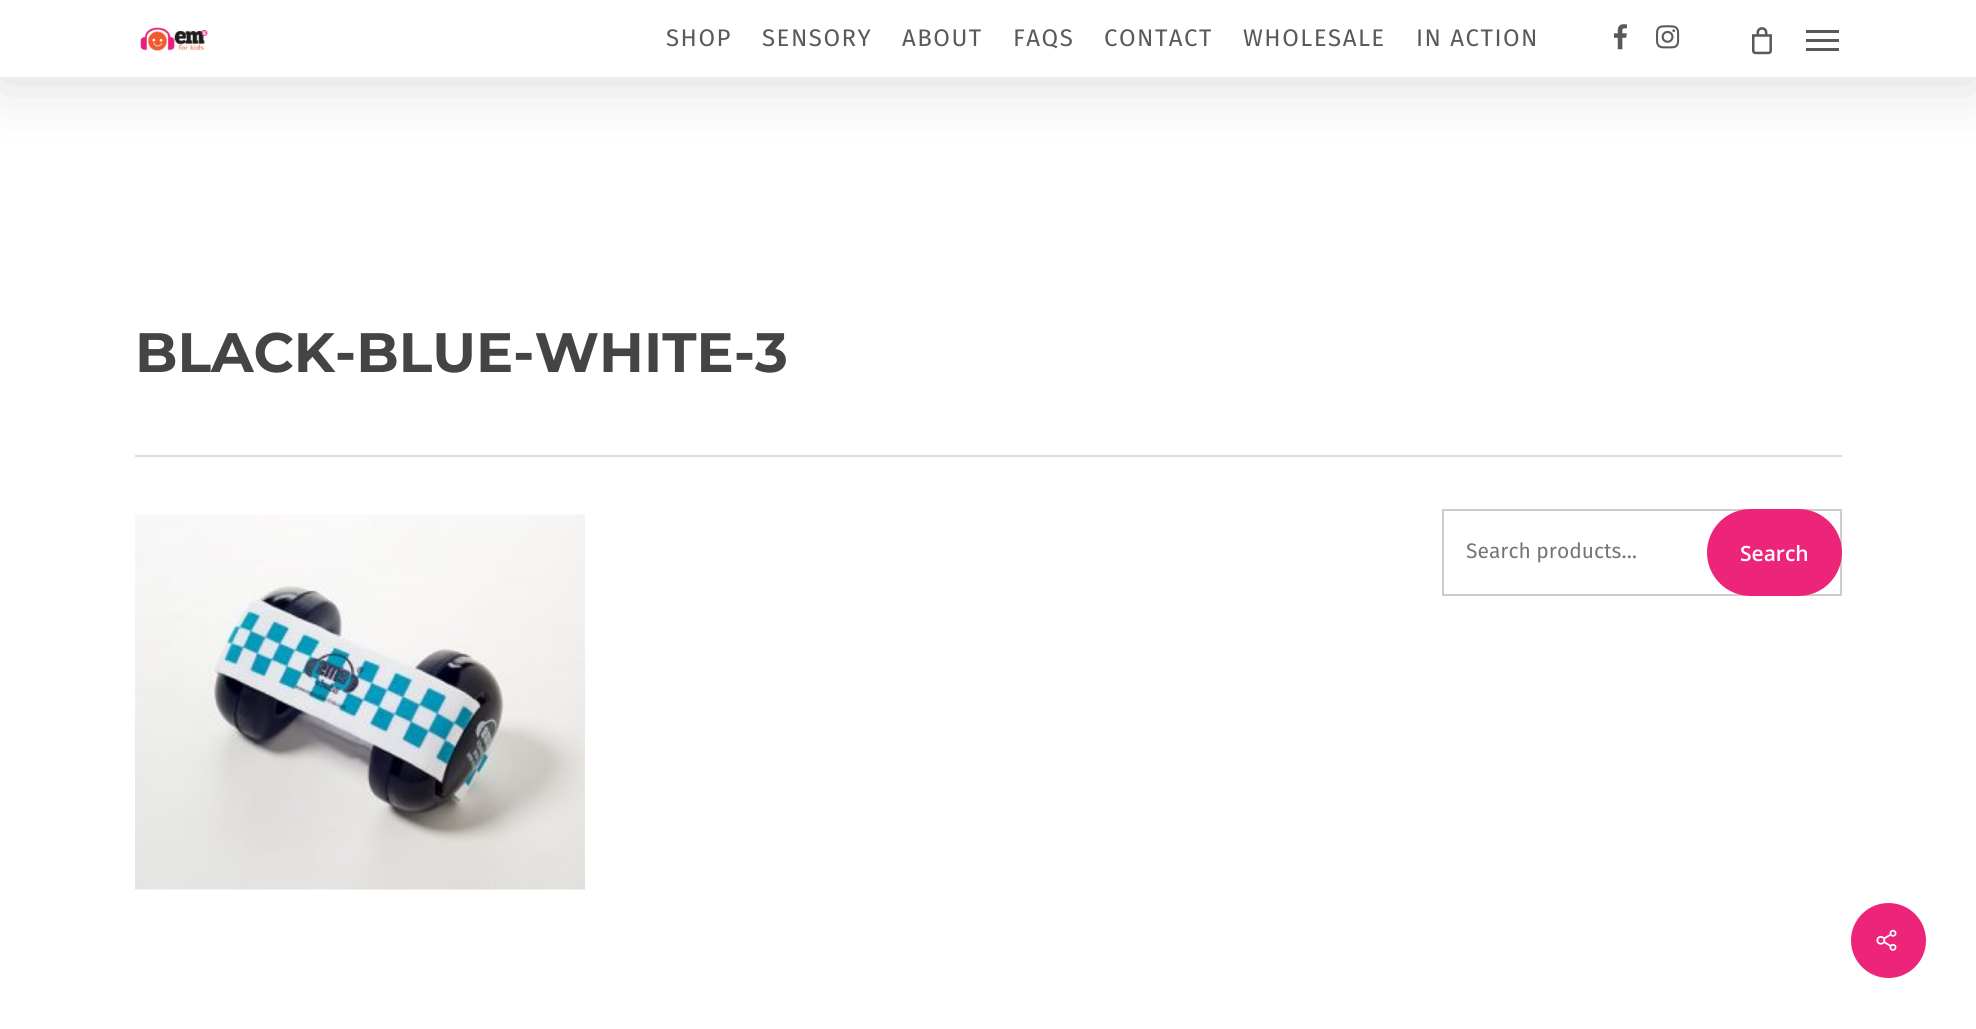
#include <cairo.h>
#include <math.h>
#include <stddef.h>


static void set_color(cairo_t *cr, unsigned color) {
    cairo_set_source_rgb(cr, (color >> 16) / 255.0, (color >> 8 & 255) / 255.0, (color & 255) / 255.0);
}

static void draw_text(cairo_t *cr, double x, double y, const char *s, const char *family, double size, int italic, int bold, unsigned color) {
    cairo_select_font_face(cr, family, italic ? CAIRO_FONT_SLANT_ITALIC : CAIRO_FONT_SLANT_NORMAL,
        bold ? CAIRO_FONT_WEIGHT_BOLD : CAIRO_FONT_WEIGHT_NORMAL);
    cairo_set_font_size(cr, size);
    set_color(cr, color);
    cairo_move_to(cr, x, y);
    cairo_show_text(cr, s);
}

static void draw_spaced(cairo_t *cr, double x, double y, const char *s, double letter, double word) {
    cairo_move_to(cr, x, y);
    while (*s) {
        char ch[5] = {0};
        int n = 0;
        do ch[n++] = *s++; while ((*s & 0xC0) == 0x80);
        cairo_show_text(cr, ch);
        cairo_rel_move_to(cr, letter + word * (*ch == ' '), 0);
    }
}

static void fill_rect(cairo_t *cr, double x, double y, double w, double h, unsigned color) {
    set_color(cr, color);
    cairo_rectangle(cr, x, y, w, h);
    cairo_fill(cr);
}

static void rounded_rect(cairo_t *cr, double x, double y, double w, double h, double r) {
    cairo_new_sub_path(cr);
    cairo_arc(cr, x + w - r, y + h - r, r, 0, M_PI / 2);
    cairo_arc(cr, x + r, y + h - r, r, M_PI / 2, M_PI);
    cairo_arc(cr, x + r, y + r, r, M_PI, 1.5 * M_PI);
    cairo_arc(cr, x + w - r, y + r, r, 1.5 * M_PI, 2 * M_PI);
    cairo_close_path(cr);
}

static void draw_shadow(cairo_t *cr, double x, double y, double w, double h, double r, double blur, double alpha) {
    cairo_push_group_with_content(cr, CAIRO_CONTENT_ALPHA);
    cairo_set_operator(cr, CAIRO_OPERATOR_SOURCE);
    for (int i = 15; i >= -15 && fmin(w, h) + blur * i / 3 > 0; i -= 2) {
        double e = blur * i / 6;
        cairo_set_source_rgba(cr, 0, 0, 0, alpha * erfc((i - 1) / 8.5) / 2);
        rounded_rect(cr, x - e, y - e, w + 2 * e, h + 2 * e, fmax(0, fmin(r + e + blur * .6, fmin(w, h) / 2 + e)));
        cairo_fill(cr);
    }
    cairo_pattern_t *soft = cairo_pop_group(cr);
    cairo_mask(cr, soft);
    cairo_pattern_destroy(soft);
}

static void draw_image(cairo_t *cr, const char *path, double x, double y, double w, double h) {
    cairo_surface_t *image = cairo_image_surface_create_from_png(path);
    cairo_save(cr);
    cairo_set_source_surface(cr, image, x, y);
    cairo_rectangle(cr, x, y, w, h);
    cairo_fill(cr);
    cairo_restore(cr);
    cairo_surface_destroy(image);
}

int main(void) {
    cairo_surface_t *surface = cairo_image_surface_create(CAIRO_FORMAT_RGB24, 1976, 1029);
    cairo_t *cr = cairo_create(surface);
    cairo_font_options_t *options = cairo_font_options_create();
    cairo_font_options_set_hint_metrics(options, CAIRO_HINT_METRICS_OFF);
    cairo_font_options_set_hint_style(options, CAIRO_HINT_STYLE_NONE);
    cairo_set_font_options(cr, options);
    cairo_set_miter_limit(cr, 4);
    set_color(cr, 0xFFFFFF);
    cairo_paint(cr);
    set_color(cr, 0x000000);
    draw_shadow(cr, 0, 5, 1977, 76, 0, 34, 0.15);
    fill_rect(cr, 0, 0, 1976, 77, 0xFFFFFF);
    draw_image(cr, "assets/img1.png", 140, 27, 68, 24);
    cairo_select_font_face(cr, "Fira Sans", CAIRO_FONT_SLANT_NORMAL, CAIRO_FONT_WEIGHT_NORMAL);
    cairo_set_font_size(cr, 24);
    set_color(cr, 0x58595B);
    draw_spaced(cr, 666, 46, "SHOP", 1.5, 0);
    draw_spaced(cr, 762, 46, "SENSORY", 1.5, 0);
    draw_spaced(cr, 902, 46, "ABOUT", 1.5, 0);
    draw_spaced(cr, 1013, 46, "FAQS", 1.5, 0);
    draw_spaced(cr, 1104, 46, "CONTACT", 1.5, 0);
    draw_spaced(cr, 1243, 46, "WHOLESALE", 1.5, 0);
    draw_spaced(cr, 1416, 46, "IN ACTION", 1.5, 0);
    draw_image(cr, "assets/img2.png", 1613, 24, 14, 26);
    draw_image(cr, "assets/img3.png", 1656, 25, 24, 24);
    draw_image(cr, "assets/img4.png", 1752, 27, 20, 28);
    fill_rect(cr, 1806, 30, 33, 3, 0x58595B);
    fill_rect(cr, 1806, 48, 33, 3, 0x58595B);
    fill_rect(cr, 1806, 39, 33, 3, 0x58595B);
    fill_rect(cr, 135, 455, 1707, 2, 0xDDDDDD);
    draw_text(cr, 135, 372, "BLACK-BLUE-WHITE-3", "Montserrat Thin", 55.5, 0, 0, 0x444444);
    draw_image(cr, "assets/img5.png", 135, 514, 450, 376);
    cairo_rectangle(cr, 1443, 510, 398, 85);
    set_color(cr, 0xCCCCCC);
    cairo_stroke(cr);
    draw_text(cr, 1466, 558, "Search products…", "Fira Sans", 21, 0, 0, 0x757575);
    set_color(cr, 0xEC257B);
    rounded_rect(cr, 1707, 509, 135, 87, 43.5);
    cairo_fill(cr);
    draw_text(cr, 1740, 561, "Search", "Open Sans SemiBold", 21, 0, 0, 0xFFFFFF);
    set_color(cr, 0xEC257B);
    cairo_new_path(cr);
    cairo_arc(cr, 1888.5, 940.5, 37.5, 0, 2 * M_PI);
    cairo_fill(cr);
    draw_image(cr, "assets/img6.png", 1876, 929, 21, 22);
    cairo_surface_write_to_png(surface, "output.png");
    cairo_font_options_destroy(options);
    cairo_destroy(cr);
    cairo_surface_destroy(surface);
    return 0;
}
